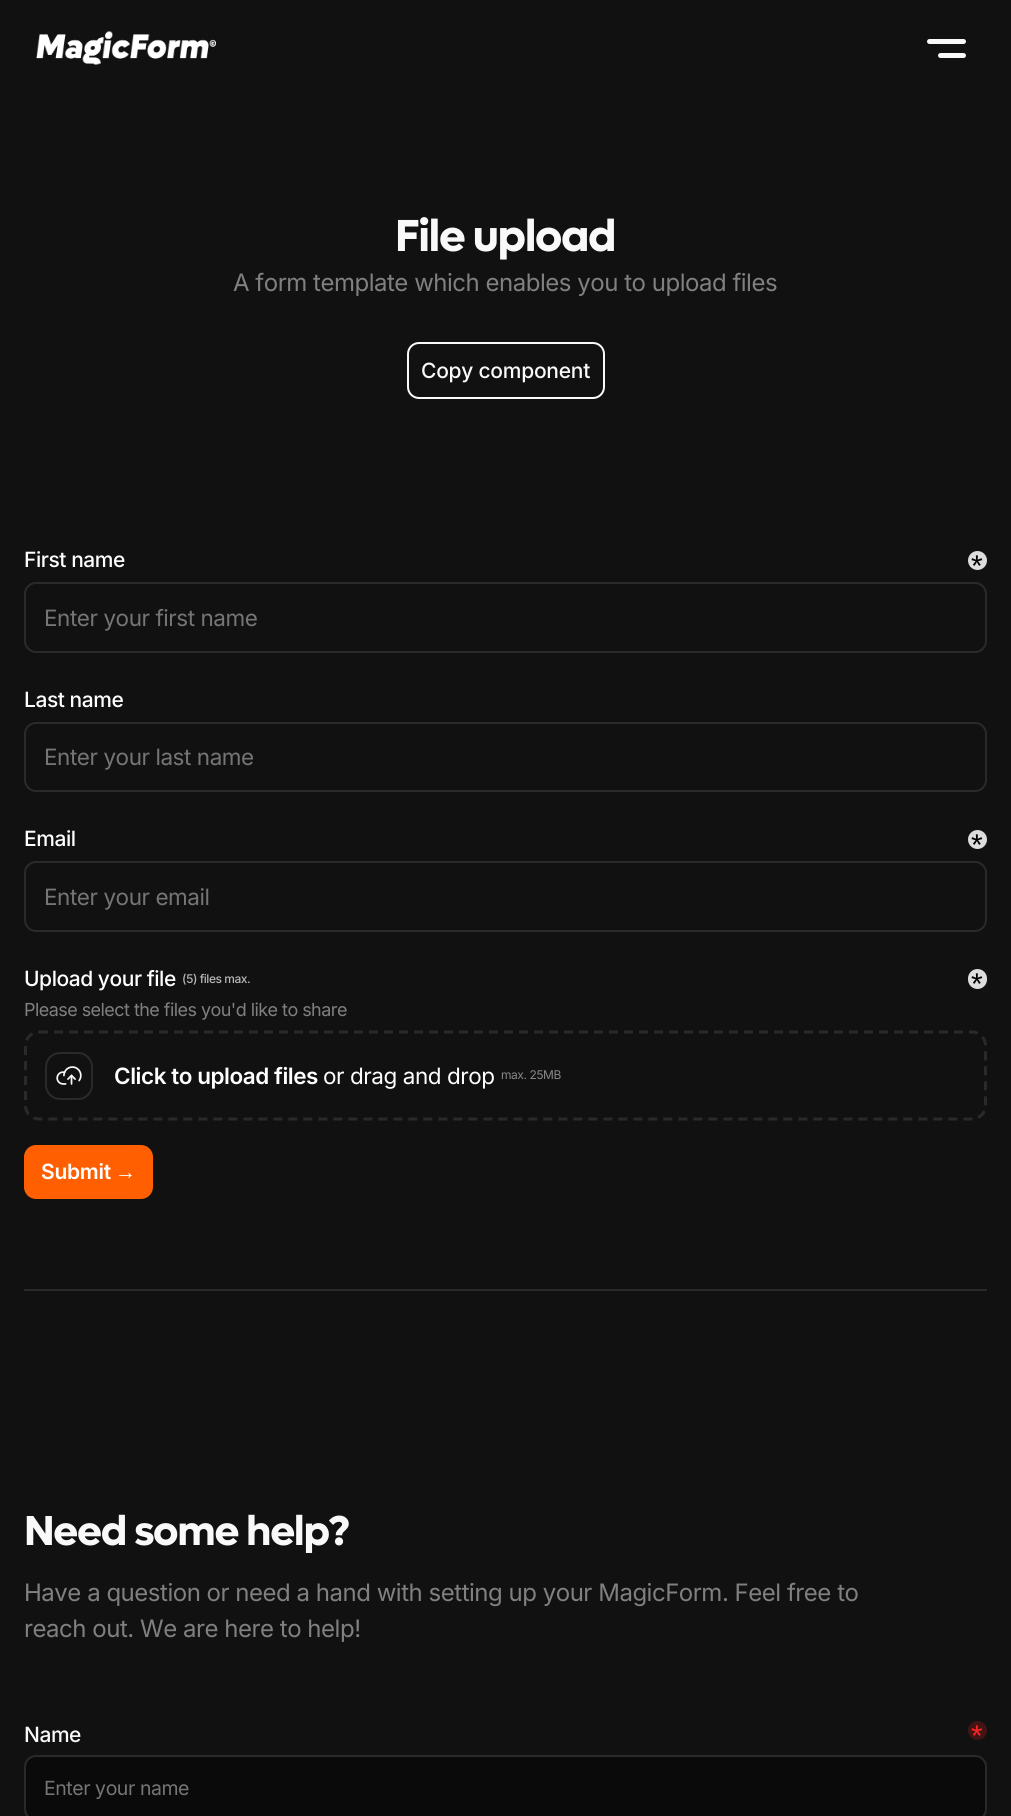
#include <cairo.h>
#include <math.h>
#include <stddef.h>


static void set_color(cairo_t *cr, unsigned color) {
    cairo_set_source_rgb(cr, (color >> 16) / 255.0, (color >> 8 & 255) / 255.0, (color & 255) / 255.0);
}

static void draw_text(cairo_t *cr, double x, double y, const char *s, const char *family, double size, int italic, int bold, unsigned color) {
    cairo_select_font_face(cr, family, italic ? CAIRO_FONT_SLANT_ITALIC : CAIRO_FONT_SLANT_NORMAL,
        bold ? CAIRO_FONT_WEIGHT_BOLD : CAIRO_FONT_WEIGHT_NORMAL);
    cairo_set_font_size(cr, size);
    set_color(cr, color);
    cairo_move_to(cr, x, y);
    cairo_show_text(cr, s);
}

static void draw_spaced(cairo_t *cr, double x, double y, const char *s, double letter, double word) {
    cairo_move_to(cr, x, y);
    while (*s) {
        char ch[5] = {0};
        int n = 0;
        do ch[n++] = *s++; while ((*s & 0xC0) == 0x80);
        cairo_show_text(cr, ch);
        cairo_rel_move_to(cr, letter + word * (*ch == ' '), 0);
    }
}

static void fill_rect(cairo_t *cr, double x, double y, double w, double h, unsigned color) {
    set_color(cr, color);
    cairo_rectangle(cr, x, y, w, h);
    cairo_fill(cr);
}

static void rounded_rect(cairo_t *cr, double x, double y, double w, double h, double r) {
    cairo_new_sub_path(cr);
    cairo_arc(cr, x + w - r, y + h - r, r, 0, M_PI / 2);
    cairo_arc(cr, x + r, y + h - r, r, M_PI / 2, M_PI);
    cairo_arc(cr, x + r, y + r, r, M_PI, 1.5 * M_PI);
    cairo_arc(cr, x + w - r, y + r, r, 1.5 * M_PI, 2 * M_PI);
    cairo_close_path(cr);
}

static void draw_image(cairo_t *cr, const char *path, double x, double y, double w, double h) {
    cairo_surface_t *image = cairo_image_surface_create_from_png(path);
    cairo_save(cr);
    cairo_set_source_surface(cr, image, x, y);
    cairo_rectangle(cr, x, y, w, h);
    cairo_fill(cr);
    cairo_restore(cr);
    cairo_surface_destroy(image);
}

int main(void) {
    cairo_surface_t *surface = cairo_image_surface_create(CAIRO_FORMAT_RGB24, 1011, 1816);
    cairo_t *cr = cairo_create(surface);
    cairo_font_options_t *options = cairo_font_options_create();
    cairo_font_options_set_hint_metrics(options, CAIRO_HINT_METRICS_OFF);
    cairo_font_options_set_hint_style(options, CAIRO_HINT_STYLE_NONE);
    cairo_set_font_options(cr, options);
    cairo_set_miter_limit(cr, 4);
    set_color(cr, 0x111111);
    cairo_paint(cr);
    draw_image(cr, "assets/img1.png", 36, 31, 180, 34);
    set_color(cr, 0xF9F9F9);
    rounded_rect(cr, 927, 39, 39, 5, 2.5);
    cairo_fill(cr);
    rounded_rect(cr, 938, 53, 28, 5, 2.5);
    cairo_fill(cr);
    cairo_select_font_face(cr, "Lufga", CAIRO_FONT_SLANT_NORMAL, CAIRO_FONT_WEIGHT_BOLD);
    cairo_set_font_size(cr, 45);
    draw_spaced(cr, 395, 251, "File upload", -1.4, 0);
    cairo_select_font_face(cr, "Inter", CAIRO_FONT_SLANT_NORMAL, CAIRO_FONT_WEIGHT_NORMAL);
    cairo_set_font_size(cr, 24);
    set_color(cr, 0x808080);
    draw_spaced(cr, 233, 291, "A form template which enables you to upload files", -0.48, 0);
    rounded_rect(cr, 408, 343, 196, 55, 11);
    set_color(cr, 0xF9F9F9);
    cairo_stroke(cr);
    cairo_select_font_face(cr, "Inter Medium", CAIRO_FONT_SLANT_NORMAL, CAIRO_FONT_WEIGHT_NORMAL);
    cairo_set_font_size(cr, 21);
    draw_spaced(cr, 421, 378, "Copy component", -0.25, 0);
    set_color(cr, 0xFFFFFF);
    draw_spaced(cr, 24, 567, "First name", -0.45, 0);
    set_color(cr, 0xDDDDDD);
    cairo_new_path(cr);
    cairo_arc(cr, 977.5, 560.5, 9.5, 0, 2 * M_PI);
    cairo_fill(cr);
    draw_text(cr, 971, 576, "*", "Liberation Sans", 30, 0, 0, 0x000000);
    rounded_rect(cr, 25, 583, 961, 69, 11);
    set_color(cr, 0x2A2A2C);
    cairo_stroke(cr);
    cairo_select_font_face(cr, "Inter", CAIRO_FONT_SLANT_NORMAL, CAIRO_FONT_WEIGHT_NORMAL);
    cairo_set_font_size(cr, 22.5);
    set_color(cr, 0x757575);
    draw_spaced(cr, 44, 626, "Enter your first name", -0.45, 0);
    cairo_select_font_face(cr, "Inter Medium", CAIRO_FONT_SLANT_NORMAL, CAIRO_FONT_WEIGHT_NORMAL);
    cairo_set_font_size(cr, 21);
    set_color(cr, 0xFFFFFF);
    draw_spaced(cr, 24, 707, "Last name", -0.45, 0);
    rounded_rect(cr, 25, 723, 961, 68, 11);
    set_color(cr, 0x2A2A2C);
    cairo_stroke(cr);
    cairo_select_font_face(cr, "Inter", CAIRO_FONT_SLANT_NORMAL, CAIRO_FONT_WEIGHT_NORMAL);
    cairo_set_font_size(cr, 22.5);
    set_color(cr, 0x757575);
    draw_spaced(cr, 44, 765, "Enter your last name", -0.45, 0);
    cairo_select_font_face(cr, "Inter Medium", CAIRO_FONT_SLANT_NORMAL, CAIRO_FONT_WEIGHT_NORMAL);
    cairo_set_font_size(cr, 21);
    set_color(cr, 0xFFFFFF);
    draw_spaced(cr, 24, 846, "Email", -0.45, 0);
    set_color(cr, 0xDDDDDD);
    cairo_new_path(cr);
    cairo_arc(cr, 977.5, 839.5, 9.5, 0, 2 * M_PI);
    cairo_fill(cr);
    draw_text(cr, 971, 855, "*", "Liberation Sans", 30, 0, 0, 0x000000);
    rounded_rect(cr, 25, 862, 961, 69, 11);
    set_color(cr, 0x2A2A2C);
    cairo_stroke(cr);
    cairo_select_font_face(cr, "Inter", CAIRO_FONT_SLANT_NORMAL, CAIRO_FONT_WEIGHT_NORMAL);
    cairo_set_font_size(cr, 22.5);
    set_color(cr, 0x757575);
    draw_spaced(cr, 44, 905, "Enter your email", -0.45, 0);
    cairo_select_font_face(cr, "Inter Medium", CAIRO_FONT_SLANT_NORMAL, CAIRO_FONT_WEIGHT_NORMAL);
    cairo_set_font_size(cr, 21);
    set_color(cr, 0xFFFFFF);
    draw_spaced(cr, 24, 986, "Upload your file", -0.45, 0);
    cairo_set_font_size(cr, 12);
    set_color(cr, 0xB8B8B8);
    draw_spaced(cr, 182, 983, "(5) files max.", -0.45, 0);
    set_color(cr, 0xDDDDDD);
    rounded_rect(cr, 968, 969, 19, 20, 9.5);
    cairo_fill(cr);
    draw_text(cr, 971, 994, "*", "Liberation Sans", 30, 0, 0, 0x000000);
    cairo_select_font_face(cr, "Inter", CAIRO_FONT_SLANT_NORMAL, CAIRO_FONT_WEIGHT_NORMAL);
    cairo_set_font_size(cr, 18);
    set_color(cr, 0x808080);
    draw_spaced(cr, 24, 1016, "Please select the files you'd like to share", -0.55, 0);
    cairo_new_path(cr);
    cairo_move_to(cr, 39, 1032);
    cairo_line_to(cr, 972, 1032);
    cairo_curve_to(cr, 979.5, 1032, 985.5, 1038, 985.5, 1045.5);
    cairo_line_to(cr, 985.5, 1105.5);
    cairo_curve_to(cr, 985.5, 1113, 979.5, 1119, 972, 1119);
    cairo_line_to(cr, 39, 1119);
    cairo_curve_to(cr, 31.5, 1119, 25.5, 1113, 25.5, 1105.5);
    cairo_line_to(cr, 25.5, 1045.5);
    cairo_curve_to(cr, 25.5, 1038, 31.5, 1032, 39, 1032);
    cairo_close_path(cr);
    set_color(cr, 0x2A2A2C);
    cairo_set_line_width(cr, 3);
    cairo_set_dash(cr, (double[]){9, 6}, 2, 0);
    cairo_stroke(cr);
    rounded_rect(cr, 46, 1053, 46, 46, 14);
    cairo_set_line_width(cr, 2);
    cairo_set_dash(cr, NULL, 0, 0);
    cairo_stroke(cr);
    draw_image(cr, "assets/img2.png", 56, 1066, 26, 19);
    cairo_select_font_face(cr, "Inter SemiBold", CAIRO_FONT_SLANT_NORMAL, CAIRO_FONT_WEIGHT_NORMAL);
    cairo_set_font_size(cr, 22.5);
    set_color(cr, 0xFFFFFF);
    draw_spaced(cr, 114, 1084, "Click to upload files", -0.45, 0);
    cairo_select_font_face(cr, "Inter", CAIRO_FONT_SLANT_NORMAL, CAIRO_FONT_WEIGHT_NORMAL);
    draw_spaced(cr, 323, 1084, "or drag and drop", -0.45, 0);
    cairo_set_font_size(cr, 12);
    set_color(cr, 0x888888);
    draw_spaced(cr, 501, 1079, "max. 25MB", -0.45, 0);
    set_color(cr, 0xFF5F00);
    rounded_rect(cr, 25, 1146, 127, 52, 11);
    cairo_fill_preserve(cr);
    cairo_stroke(cr);
    cairo_select_font_face(cr, "Inter SemiBold", CAIRO_FONT_SLANT_NORMAL, CAIRO_FONT_WEIGHT_NORMAL);
    cairo_set_font_size(cr, 21);
    set_color(cr, 0xFFFFFF);
    draw_spaced(cr, 41, 1179, "Submit", -0.25, 0);
    cairo_select_font_face(cr, "Liberation Sans", CAIRO_FONT_SLANT_NORMAL, CAIRO_FONT_WEIGHT_BOLD);
    draw_spaced(cr, 115, 1179, "→", -0.25, 0);
    fill_rect(cr, 24, 1289, 963, 2, 0x2A2A2C);
    cairo_select_font_face(cr, "Lufga", CAIRO_FONT_SLANT_NORMAL, CAIRO_FONT_WEIGHT_BOLD);
    cairo_set_font_size(cr, 42);
    set_color(cr, 0xF9F9F9);
    draw_spaced(cr, 24, 1545, "Need some help?", -1.25, 0);
    cairo_select_font_face(cr, "Inter", CAIRO_FONT_SLANT_NORMAL, CAIRO_FONT_WEIGHT_NORMAL);
    cairo_set_font_size(cr, 24);
    set_color(cr, 0x808080);
    draw_spaced(cr, 24, 1601, "Have a question or need a hand with setting up your MagicForm. Feel free to", -0.48, 0);
    draw_spaced(cr, 24, 1637, "reach out. We are here to help!", -0.48, 0);
    cairo_select_font_face(cr, "Inter Medium", CAIRO_FONT_SLANT_NORMAL, CAIRO_FONT_WEIGHT_NORMAL);
    cairo_set_font_size(cr, 21);
    set_color(cr, 0xF9F9F9);
    draw_spaced(cr, 24, 1742, "Name", -0.45, 0);
    set_color(cr, 0x421414);
    cairo_new_path(cr);
    cairo_arc(cr, 977.5, 1730.5, 9.5, 0, 2 * M_PI);
    cairo_fill(cr);
    draw_text(cr, 971, 1746, "*", "Liberation Sans", 30, 0, 0, 0xFF2424);
    set_color(cr, 0x0A0A0A);
    rounded_rect(cr, 25, 1756, 961, 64, 11);
    cairo_fill_preserve(cr);
    set_color(cr, 0x2A2A2C);
    cairo_stroke(cr);
    cairo_select_font_face(cr, "Inter", CAIRO_FONT_SLANT_NORMAL, CAIRO_FONT_WEIGHT_NORMAL);
    cairo_set_font_size(cr, 19.5);
    set_color(cr, 0x757575);
    draw_spaced(cr, 44, 1795, "Enter your name", -0.45, 0);
    cairo_surface_write_to_png(surface, "output.png");
    cairo_font_options_destroy(options);
    cairo_destroy(cr);
    cairo_surface_destroy(surface);
    return 0;
}
